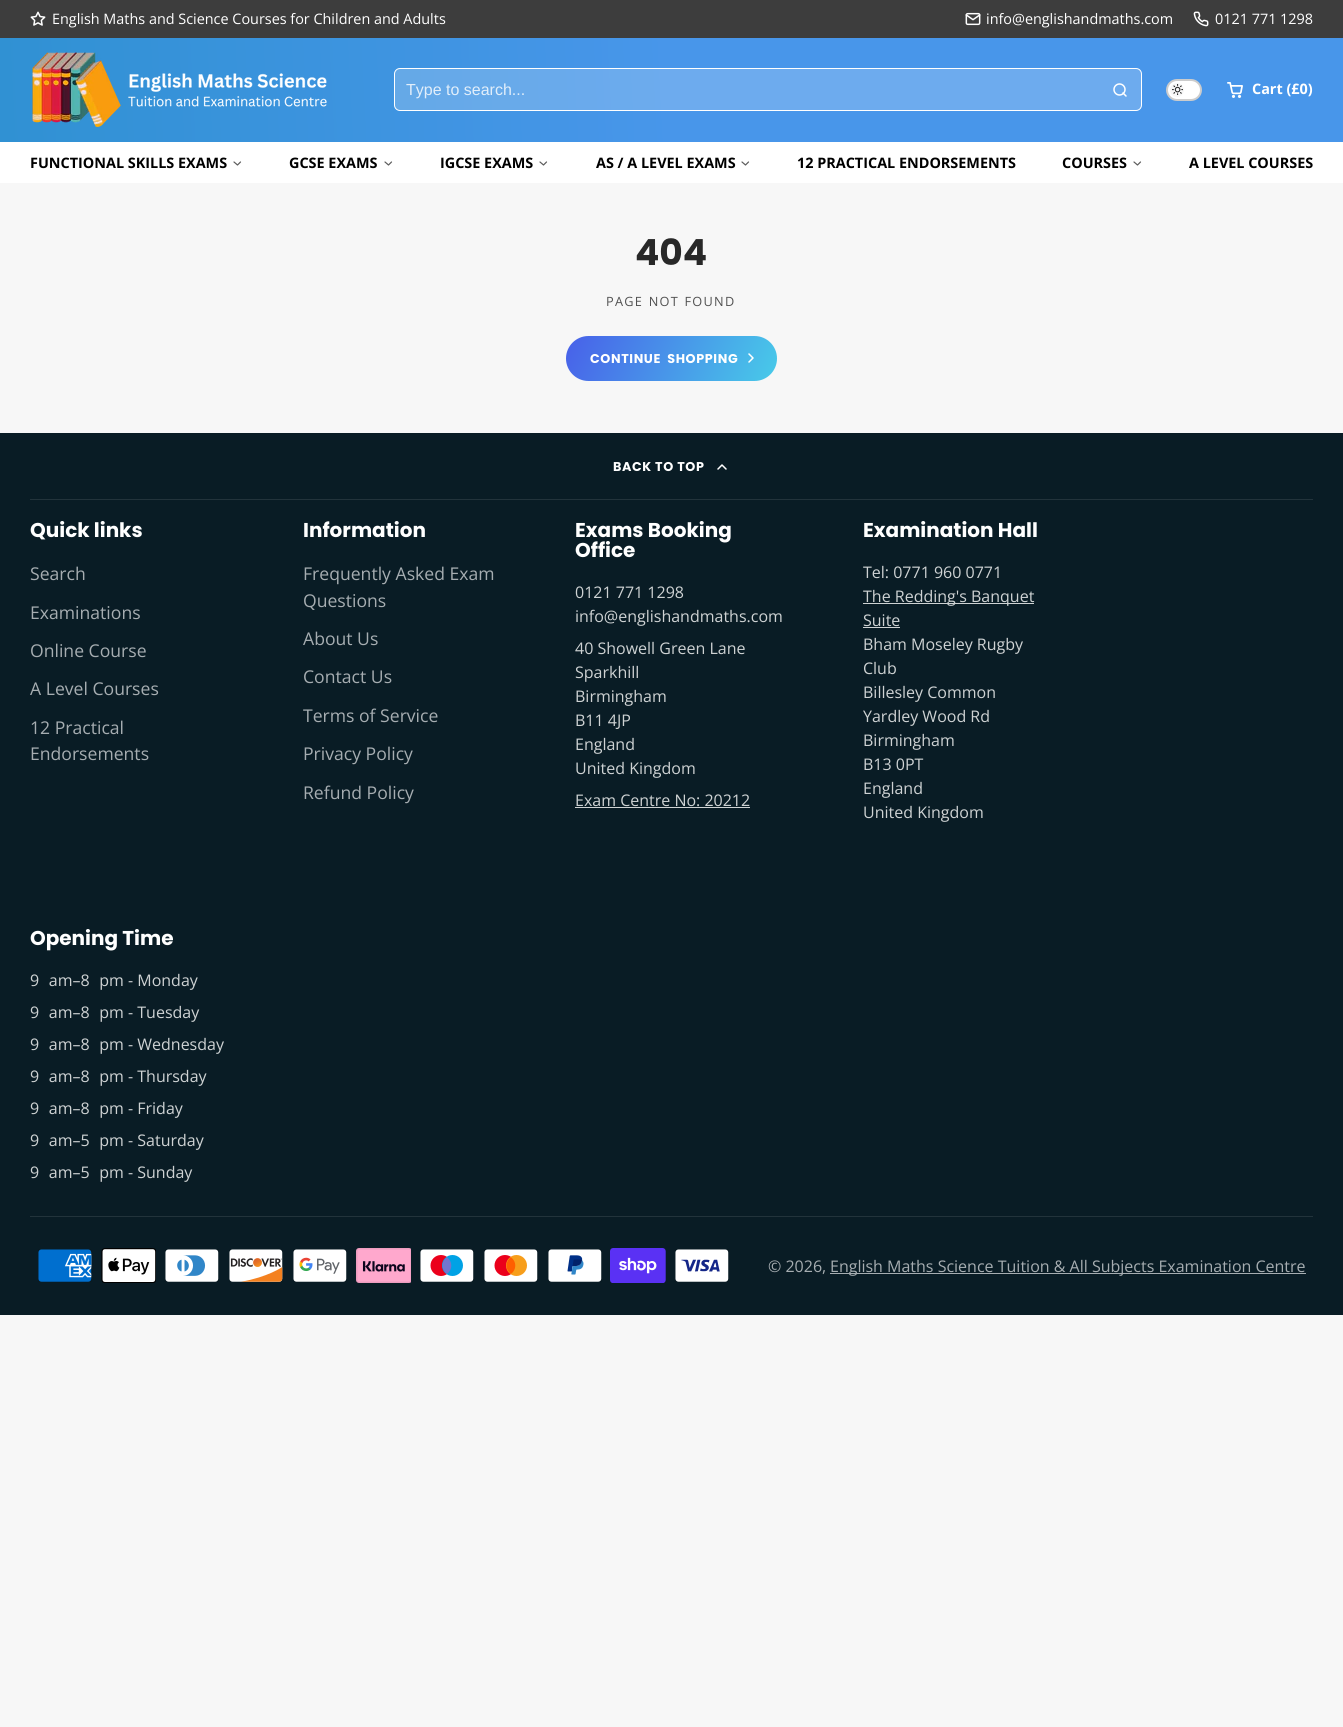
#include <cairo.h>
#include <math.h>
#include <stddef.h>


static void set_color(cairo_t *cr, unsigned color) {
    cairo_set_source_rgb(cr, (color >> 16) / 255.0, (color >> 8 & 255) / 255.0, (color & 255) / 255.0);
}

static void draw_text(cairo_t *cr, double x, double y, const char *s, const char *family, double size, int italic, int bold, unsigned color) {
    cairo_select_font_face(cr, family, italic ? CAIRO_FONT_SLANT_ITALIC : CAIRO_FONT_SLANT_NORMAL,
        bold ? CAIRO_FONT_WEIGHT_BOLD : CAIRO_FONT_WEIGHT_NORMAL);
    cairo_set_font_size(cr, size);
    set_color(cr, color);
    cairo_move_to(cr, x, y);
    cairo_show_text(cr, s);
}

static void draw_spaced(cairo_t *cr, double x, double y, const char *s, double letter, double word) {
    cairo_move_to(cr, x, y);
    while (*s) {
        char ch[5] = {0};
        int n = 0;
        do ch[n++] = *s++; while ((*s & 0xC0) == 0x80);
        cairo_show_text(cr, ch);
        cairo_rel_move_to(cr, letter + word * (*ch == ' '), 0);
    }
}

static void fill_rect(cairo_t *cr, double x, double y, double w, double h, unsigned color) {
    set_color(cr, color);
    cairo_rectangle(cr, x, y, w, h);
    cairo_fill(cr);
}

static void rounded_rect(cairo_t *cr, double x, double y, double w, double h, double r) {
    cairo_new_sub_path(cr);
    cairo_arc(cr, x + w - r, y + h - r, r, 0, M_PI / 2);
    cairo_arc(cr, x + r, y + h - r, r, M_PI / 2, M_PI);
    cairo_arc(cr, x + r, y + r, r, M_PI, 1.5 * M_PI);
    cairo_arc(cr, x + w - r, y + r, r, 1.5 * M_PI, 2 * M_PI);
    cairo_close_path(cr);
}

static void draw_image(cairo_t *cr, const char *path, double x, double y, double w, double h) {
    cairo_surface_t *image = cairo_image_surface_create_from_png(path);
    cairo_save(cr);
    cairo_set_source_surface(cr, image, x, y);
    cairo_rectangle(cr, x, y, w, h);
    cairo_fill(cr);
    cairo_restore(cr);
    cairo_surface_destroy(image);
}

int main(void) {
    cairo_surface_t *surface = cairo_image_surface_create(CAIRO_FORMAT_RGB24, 1343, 1727);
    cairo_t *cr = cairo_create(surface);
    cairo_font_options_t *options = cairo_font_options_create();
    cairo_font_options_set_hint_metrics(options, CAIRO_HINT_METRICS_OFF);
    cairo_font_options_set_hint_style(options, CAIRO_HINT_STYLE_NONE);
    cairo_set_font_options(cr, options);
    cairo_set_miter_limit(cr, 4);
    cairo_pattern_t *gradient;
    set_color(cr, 0xF7F7F7);
    cairo_paint(cr);
    fill_rect(cr, 0, 0, 1343, 38, 0x3D3D3D);
    draw_image(cr, "assets/img1.png", 30, 11, 16, 15);
    draw_text(cr, 52, 24, "English Maths and Science Courses for Children and Adults", "Open Sans", 14.4, 0, 0, 0xFFFFFF);
    draw_image(cr, "assets/img2.png", 965, 12, 16, 14);
    draw_text(cr, 986, 24, "info@englishandmaths.com", "Open Sans", 14.4, 0, 0, 0xFFFFFF);
    draw_image(cr, "assets/img3.png", 1193, 11, 16, 16);
    draw_text(cr, 1215, 24, "0121 771 1298", "Open Sans", 14.4, 0, 0, 0xFFFFFF);
    gradient = cairo_pattern_create_linear(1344, 55, -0.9, 125);
    cairo_pattern_add_color_stop_rgba(gradient, 0, 0.282, 0.588, 0.918, 1);
    cairo_pattern_add_color_stop_rgba(gradient, 0.5, 0.282, 0.588, 0.918, 1);
    cairo_pattern_add_color_stop_rgba(gradient, 1, 0.188, 0.569, 0.827, 1);
    cairo_set_source(cr, gradient);
    cairo_pattern_destroy(gradient);
    cairo_rectangle(cr, 0, 38, 1343, 104);
    cairo_fill(cr);
    draw_image(cr, "assets/img4.png", 32, 52, 295, 75);
    cairo_set_source_rgba(cr, 1, 1, 1, 0.2);
    rounded_rect(cr, 394.5, 68.5, 747, 42, 5.5);
    cairo_fill_preserve(cr);
    set_color(cr, 0xFFFFFF);
    cairo_set_line_width(cr, 1);
    cairo_stroke(cr);
    draw_text(cr, 406, 95, "Type to search...", "Liberation Sans", 16, 0, 0, 0xE1EEFA);
    cairo_new_path(cr);
    cairo_arc(cr, 1119.5, 89.5, 5.5, 0, 2 * M_PI);
    set_color(cr, 0xFFFFFF);
    cairo_set_line_width(cr, 1.5);
    cairo_stroke(cr);
    cairo_new_path(cr);
    cairo_move_to(cr, 1126, 96);
    cairo_line_to(cr, 1123, 93);
    cairo_set_line_cap(cr, CAIRO_LINE_CAP_ROUND);
    cairo_set_line_join(cr, CAIRO_LINE_JOIN_ROUND);
    cairo_stroke(cr);
    rounded_rect(cr, 1167, 80, 34, 20, 10);
    cairo_fill_preserve(cr);
    set_color(cr, 0xCCCCCC);
    cairo_set_line_width(cr, 2);
    cairo_set_line_cap(cr, CAIRO_LINE_CAP_BUTT);
    cairo_set_line_join(cr, CAIRO_LINE_JOIN_MITER);
    cairo_stroke(cr);
    set_color(cr, 0xF7F7F7);
    cairo_arc(cr, 1177, 90, 7, 0, 2 * M_PI);
    cairo_fill(cr);
    draw_image(cr, "assets/img5.png", 1172, 84, 11, 11);
    draw_image(cr, "assets/img6.png", 1227, 82, 16, 16);
    draw_text(cr, 1252, 94, "Cart (£0)", "Open Sans", 14.4, 0, 1, 0xFFFFFF);
    fill_rect(cr, 0, 142, 1343, 41, 0xFFFFFF);
    draw_text(cr, 30, 168, "FUNCTIONAL SKILLS EXAMS", "Open Sans", 14.4, 0, 1, 0x000000);
    cairo_new_path(cr);
    cairo_move_to(cr, 234, 162);
    cairo_line_to(cr, 237.5, 165);
    cairo_line_to(cr, 240.5, 162);
    set_color(cr, 0x5C5C5C);
    cairo_set_line_width(cr, 1.2);
    cairo_set_line_cap(cr, CAIRO_LINE_CAP_ROUND);
    cairo_set_line_join(cr, CAIRO_LINE_JOIN_ROUND);
    cairo_stroke(cr);
    draw_text(cr, 289, 168, "GCSE EXAMS", "Open Sans", 14.4, 0, 1, 0x000000);
    cairo_new_path(cr);
    cairo_move_to(cr, 385, 162);
    cairo_line_to(cr, 388.5, 165);
    cairo_line_to(cr, 391.5, 162);
    set_color(cr, 0x5C5C5C);
    cairo_stroke(cr);
    draw_text(cr, 440, 168, "IGCSE EXAMS", "Open Sans", 14.4, 0, 1, 0x000000);
    cairo_new_path(cr);
    cairo_move_to(cr, 540, 162);
    cairo_line_to(cr, 543.5, 165);
    cairo_line_to(cr, 546.5, 162);
    set_color(cr, 0x5C5C5C);
    cairo_stroke(cr);
    draw_text(cr, 596, 168, "AS / A LEVEL EXAMS", "Open Sans", 14.4, 0, 1, 0x000000);
    cairo_new_path(cr);
    cairo_move_to(cr, 742, 162);
    cairo_line_to(cr, 745.5, 165);
    cairo_line_to(cr, 748.5, 162);
    set_color(cr, 0x5C5C5C);
    cairo_stroke(cr);
    draw_text(cr, 797, 168, "12 PRACTICAL ENDORSEMENTS", "Open Sans", 14.4, 0, 1, 0x000000);
    draw_text(cr, 1062, 168, "COURSES", "Open Sans", 14.4, 0, 1, 0x000000);
    cairo_new_path(cr);
    cairo_move_to(cr, 1134, 162);
    cairo_line_to(cr, 1137.5, 165);
    cairo_line_to(cr, 1140.5, 162);
    set_color(cr, 0x5C5C5C);
    cairo_stroke(cr);
    draw_text(cr, 1189, 168, "A LEVEL COURSES", "Open Sans", 14.4, 0, 1, 0x000000);
    draw_text(cr, 635, 265, "404", "Poppins", 36, 0, 1, 0x282828);
    cairo_select_font_face(cr, "Open Sans", CAIRO_FONT_SLANT_NORMAL, CAIRO_FONT_WEIGHT_NORMAL);
    cairo_set_font_size(cr, 12.75);
    set_color(cr, 0x515151);
    draw_spaced(cr, 606, 306, "PAGE NOT FOUND", 1.25, 1);
    gradient = cairo_pattern_create_linear(576, 314, 767, 403);
    cairo_pattern_add_color_stop_rgba(gradient, 0, 0.282, 0.376, 0.914, 1);
    cairo_pattern_add_color_stop_rgba(gradient, 1, 0.282, 0.796, 0.914, 1);
    cairo_set_source(cr, gradient);
    cairo_pattern_destroy(gradient);
    rounded_rect(cr, 566, 336, 211, 45, 22.5);
    cairo_fill(cr);
    cairo_select_font_face(cr, "Poppins", CAIRO_FONT_SLANT_NORMAL, CAIRO_FONT_WEIGHT_BOLD);
    set_color(cr, 0xFFFFFF);
    draw_spaced(cr, 590, 363, "CONTINUE SHOPPING", 0.6, 3);
    cairo_new_path(cr);
    cairo_move_to(cr, 749, 362);
    cairo_line_to(cr, 753, 358);
    cairo_line_to(cr, 749, 354);
    cairo_set_line_width(cr, 1.5);
    cairo_stroke(cr);
    fill_rect(cr, 0, 433, 1343, 882, 0x091C25);
    set_color(cr, 0xFFFFFF);
    draw_spaced(cr, 613, 471, "BACK TO TOP", 0.6, 0);
    cairo_new_path(cr);
    cairo_move_to(cr, 726, 469);
    cairo_line_to(cr, 722, 465);
    cairo_line_to(cr, 718, 469);
    cairo_stroke(cr);
    fill_rect(cr, 30, 499, 1283, 1, 0x22333B);
    draw_text(cr, 30, 537, "Quick links", "Poppins", 20, 0, 1, 0xFFFFFF);
    draw_text(cr, 30, 580, "Search", "Open Sans", 17.6, 0, 0, 0xA6ADB1);
    draw_text(cr, 30, 619, "Examinations", "Open Sans", 17.6, 0, 0, 0xA6ADB1);
    draw_text(cr, 30, 657, "Online Course", "Open Sans", 17.6, 0, 0, 0xA6ADB1);
    draw_text(cr, 30, 695, "A Level Courses", "Open Sans", 17.6, 0, 0, 0xA6ADB1);
    draw_text(cr, 30, 734, "12 Practical", "Open Sans", 17.6, 0, 0, 0xA6ADB1);
    draw_text(cr, 30, 760, "Endorsements", "Open Sans", 17.6, 0, 0, 0xA6ADB1);
    draw_text(cr, 303, 537, "Information", "Poppins", 20, 0, 1, 0xFFFFFF);
    draw_text(cr, 303, 580, "Frequently Asked Exam", "Open Sans", 17.6, 0, 0, 0xA6ADB1);
    draw_text(cr, 303, 607, "Questions", "Open Sans", 17.6, 0, 0, 0xA6ADB1);
    draw_text(cr, 303, 645, "About Us", "Open Sans", 17.6, 0, 0, 0xA6ADB1);
    draw_text(cr, 303, 683, "Contact Us", "Open Sans", 17.6, 0, 0, 0xA6ADB1);
    draw_text(cr, 303, 722, "Terms of Service", "Open Sans", 17.6, 0, 0, 0xA6ADB1);
    draw_text(cr, 303, 760, "Privacy Policy", "Open Sans", 17.6, 0, 0, 0xA6ADB1);
    draw_text(cr, 303, 799, "Refund Policy", "Open Sans", 17.6, 0, 0, 0xA6ADB1);
    draw_text(cr, 575, 537, "Exams Booking", "Poppins", 20, 0, 1, 0xFFFFFF);
    draw_text(cr, 575, 557, "Office", "Poppins", 20, 0, 1, 0xFFFFFF);
    draw_text(cr, 575, 598, "0121 771 1298", "Open Sans", 16, 0, 0, 0xCED2D3);
    draw_text(cr, 575, 622, "info@englishandmaths.com", "Open Sans", 16, 0, 0, 0xCED2D3);
    draw_text(cr, 575, 654, "40 Showell Green Lane", "Open Sans", 16, 0, 0, 0xCED2D3);
    draw_text(cr, 575, 678, "Sparkhill", "Open Sans", 16, 0, 0, 0xCED2D3);
    draw_text(cr, 575, 702, "Birmingham", "Open Sans", 16, 0, 0, 0xCED2D3);
    draw_text(cr, 575, 726, "B11 4JP", "Open Sans", 16, 0, 0, 0xCED2D3);
    draw_text(cr, 575, 750, "England", "Open Sans", 16, 0, 0, 0xCED2D3);
    draw_text(cr, 575, 774, "United Kingdom", "Open Sans", 16, 0, 0, 0xCED2D3);
    draw_text(cr, 575, 806, "Exam Centre No: 20212", "Open Sans", 16, 0, 0, 0xCED2D3);
    fill_rect(cr, 575, 807, 175, 1, 0xCED2D3);
    draw_text(cr, 863, 537, "Examination Hall", "Poppins", 20, 0, 1, 0xFFFFFF);
    draw_text(cr, 863, 578, "Tel: 0771 960 0771", "Open Sans", 16, 0, 0, 0xCED2D3);
    fill_rect(cr, 863, 603, 171, 1, 0xCED2D3);
    draw_text(cr, 863, 602, "The Redding's Banquet", "Open Sans", 16, 0, 0, 0xCED2D3);
    draw_text(cr, 863, 626, "Suite", "Open Sans", 16, 0, 0, 0xCED2D3);
    fill_rect(cr, 863, 627, 37, 1, 0xCED2D3);
    draw_text(cr, 863, 650, "Bham Moseley Rugby", "Open Sans", 16, 0, 0, 0xCED2D3);
    draw_text(cr, 863, 674, "Club", "Open Sans", 16, 0, 0, 0xCED2D3);
    draw_text(cr, 863, 698, "Billesley Common", "Open Sans", 16, 0, 0, 0xCED2D3);
    draw_text(cr, 863, 722, "Yardley Wood Rd", "Open Sans", 16, 0, 0, 0xCED2D3);
    draw_text(cr, 863, 746, "Birmingham", "Open Sans", 16, 0, 0, 0xCED2D3);
    draw_text(cr, 863, 770, "B13 0PT", "Open Sans", 16, 0, 0, 0xCED2D3);
    draw_text(cr, 863, 794, "England", "Open Sans", 16, 0, 0, 0xCED2D3);
    draw_text(cr, 863, 818, "United Kingdom", "Open Sans", 16, 0, 0, 0xCED2D3);
    draw_text(cr, 30, 945, "Opening Time", "Poppins", 20, 0, 1, 0xFFFFFF);
    draw_text(cr, 30, 986, "9 am–8 pm - Monday", "Open Sans", 16, 0, 0, 0xCED2D3);
    draw_text(cr, 30, 1018, "9 am–8 pm - Tuesday", "Open Sans", 16, 0, 0, 0xCED2D3);
    draw_text(cr, 30, 1050, "9 am–8 pm - Wednesday", "Open Sans", 16, 0, 0, 0xCED2D3);
    draw_text(cr, 30, 1082, "9 am–8 pm - Thursday", "Open Sans", 16, 0, 0, 0xCED2D3);
    draw_text(cr, 30, 1114, "9 am–8 pm - Friday", "Open Sans", 16, 0, 0, 0xCED2D3);
    draw_text(cr, 30, 1146, "9 am–5 pm - Saturday", "Open Sans", 16, 0, 0, 0xCED2D3);
    draw_text(cr, 30, 1178, "9 am–5 pm - Sunday", "Open Sans", 16, 0, 0, 0xCED2D3);
    fill_rect(cr, 30, 1216, 1283, 1, 0x22333B);
    draw_image(cr, "assets/img7.png", 38, 1249, 54, 33);
    draw_image(cr, "assets/img8.png", 101, 1248, 55, 35);
    draw_image(cr, "assets/img9.png", 165, 1249, 54, 33);
    draw_image(cr, "assets/img10.png", 229, 1249, 54, 33);
    draw_image(cr, "assets/img11.png", 293, 1249, 54, 33);
    draw_image(cr, "assets/img12.png", 356, 1248, 55, 35);
    draw_image(cr, "assets/img13.png", 420, 1249, 54, 33);
    draw_image(cr, "assets/img14.png", 484, 1249, 54, 33);
    draw_image(cr, "assets/img15.png", 548, 1249, 54, 33);
    draw_image(cr, "assets/img16.png", 610, 1248, 56, 35);
    draw_image(cr, "assets/img17.png", 675, 1249, 54, 33);
    draw_text(cr, 768, 1272, "© 2026,", "Open Sans", 16, 0, 0, 0xA6ADB1);
    fill_rect(cr, 830, 1273, 476, 1, 0xA6ADB1);
    draw_text(cr, 830, 1272, "English Maths Science Tuition & All Subjects Examination Centre", "Open Sans", 16, 0, 0, 0xA6ADB1);
    cairo_surface_write_to_png(surface, "output.png");
    cairo_font_options_destroy(options);
    cairo_destroy(cr);
    cairo_surface_destroy(surface);
    return 0;
}
